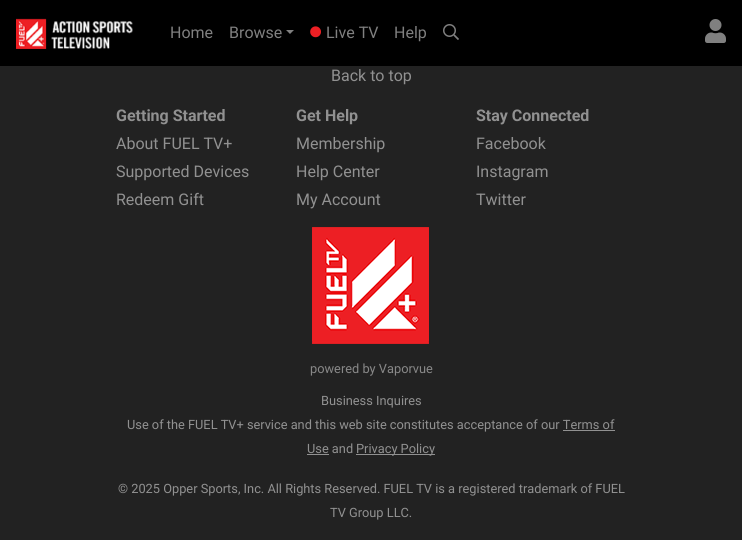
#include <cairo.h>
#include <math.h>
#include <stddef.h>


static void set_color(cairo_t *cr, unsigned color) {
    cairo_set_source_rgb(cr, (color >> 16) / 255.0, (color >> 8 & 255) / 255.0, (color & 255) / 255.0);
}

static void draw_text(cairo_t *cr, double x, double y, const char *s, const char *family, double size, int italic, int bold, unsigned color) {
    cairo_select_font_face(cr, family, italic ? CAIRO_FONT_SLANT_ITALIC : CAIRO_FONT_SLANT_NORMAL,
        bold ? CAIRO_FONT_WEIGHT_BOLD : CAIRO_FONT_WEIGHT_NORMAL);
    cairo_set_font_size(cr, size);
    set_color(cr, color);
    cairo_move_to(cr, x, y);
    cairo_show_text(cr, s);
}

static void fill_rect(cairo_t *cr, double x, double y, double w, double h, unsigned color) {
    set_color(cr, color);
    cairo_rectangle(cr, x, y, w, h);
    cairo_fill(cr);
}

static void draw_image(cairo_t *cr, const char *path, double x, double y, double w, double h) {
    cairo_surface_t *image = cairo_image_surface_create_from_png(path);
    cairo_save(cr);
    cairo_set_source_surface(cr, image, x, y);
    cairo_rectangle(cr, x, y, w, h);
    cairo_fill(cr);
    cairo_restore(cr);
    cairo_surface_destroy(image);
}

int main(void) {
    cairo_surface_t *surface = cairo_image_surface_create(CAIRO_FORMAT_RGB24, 742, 540);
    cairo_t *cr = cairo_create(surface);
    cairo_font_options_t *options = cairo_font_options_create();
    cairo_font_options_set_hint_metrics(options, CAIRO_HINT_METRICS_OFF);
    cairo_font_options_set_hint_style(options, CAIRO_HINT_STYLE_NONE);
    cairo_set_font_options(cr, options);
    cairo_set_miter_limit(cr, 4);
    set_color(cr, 0x222222);
    cairo_paint(cr);
    fill_rect(cr, 0, 0, 742, 66, 0x000000);
    draw_image(cr, "assets/img1.png", 16, 18, 117, 31);
    draw_text(cr, 170, 38, "Home", "Roboto", 16, 0, 0, 0x808080);
    draw_text(cr, 229, 38, "Browse", "Roboto", 16, 0, 0, 0x808080);
    cairo_new_path(cr);
    cairo_move_to(cr, 286, 30);
    cairo_line_to(cr, 294, 30);
    cairo_line_to(cr, 290, 34);
    cairo_close_path(cr);
    cairo_fill(cr);
    draw_image(cr, "assets/img2.png", 310, 26, 11, 12);
    draw_text(cr, 326, 38, "Live TV", "Roboto", 16, 0, 0, 0x808080);
    draw_text(cr, 394, 38, "Help", "Roboto", 16, 0, 0, 0x808080);
    draw_image(cr, "assets/img3.png", 443, 24, 16, 16);
    draw_image(cr, "assets/img4.png", 705, 19, 21, 24);
    draw_text(cr, 331, 81, "Back to top", "Roboto", 16, 0, 0, 0x919191);
    draw_text(cr, 116, 121, "Getting Started", "Roboto", 16, 0, 1, 0x919191);
    draw_text(cr, 116, 149, "About FUEL TV+", "Roboto", 16, 0, 0, 0x919191);
    draw_text(cr, 116, 177, "Supported Devices", "Roboto", 16, 0, 0, 0x919191);
    draw_text(cr, 116, 205, "Redeem Gift", "Roboto", 16, 0, 0, 0x919191);
    draw_text(cr, 296, 121, "Get Help", "Roboto", 16, 0, 1, 0x919191);
    draw_text(cr, 296, 149, "Membership", "Roboto", 16, 0, 0, 0x919191);
    draw_text(cr, 296, 177, "Help Center", "Roboto", 16, 0, 0, 0x919191);
    draw_text(cr, 296, 205, "My Account", "Roboto", 16, 0, 0, 0x919191);
    draw_text(cr, 476, 121, "Stay Connected", "Roboto", 16, 0, 1, 0x919191);
    draw_text(cr, 476, 149, "Facebook", "Roboto", 16, 0, 0, 0x919191);
    draw_text(cr, 476, 177, "Instagram", "Roboto", 16, 0, 0, 0x919191);
    draw_text(cr, 476, 205, "Twitter", "Roboto", 16, 0, 0, 0x919191);
    draw_image(cr, "assets/img5.png", 312, 227, 117, 117);
    draw_text(cr, 310, 373, "powered by Vaporvue", "Roboto", 12.8, 0, 0, 0x888888);
    draw_text(cr, 321, 405, "Business Inquires", "Roboto", 12.8, 0, 0, 0x919191);
    draw_text(cr, 127, 429, "Use of the FUEL TV+ service and this web site constitutes acceptance of our Terms of", "Roboto", 12.8, 0, 0, 0x919191);
    fill_rect(cr, 563, 430, 52, 1, 0x919191);
    draw_text(cr, 307, 453, "Use and", "Roboto", 12.8, 0, 0, 0x919191);
    fill_rect(cr, 307, 454, 22, 1, 0x919191);
    fill_rect(cr, 356, 454, 79, 1, 0x919191);
    draw_text(cr, 356, 453, "Privacy Policy", "Roboto", 12.8, 0, 0, 0x919191);
    draw_text(cr, 118, 493, "© 2025 Opper Sports, Inc. All Rights Reserved. FUEL TV is a registered trademark of FUEL", "Roboto", 12.8, 0, 0, 0x919191);
    draw_text(cr, 330, 517, "TV Group LLC.", "Roboto", 12.8, 0, 0, 0x919191);
    cairo_surface_write_to_png(surface, "output.png");
    cairo_font_options_destroy(options);
    cairo_destroy(cr);
    cairo_surface_destroy(surface);
    return 0;
}
